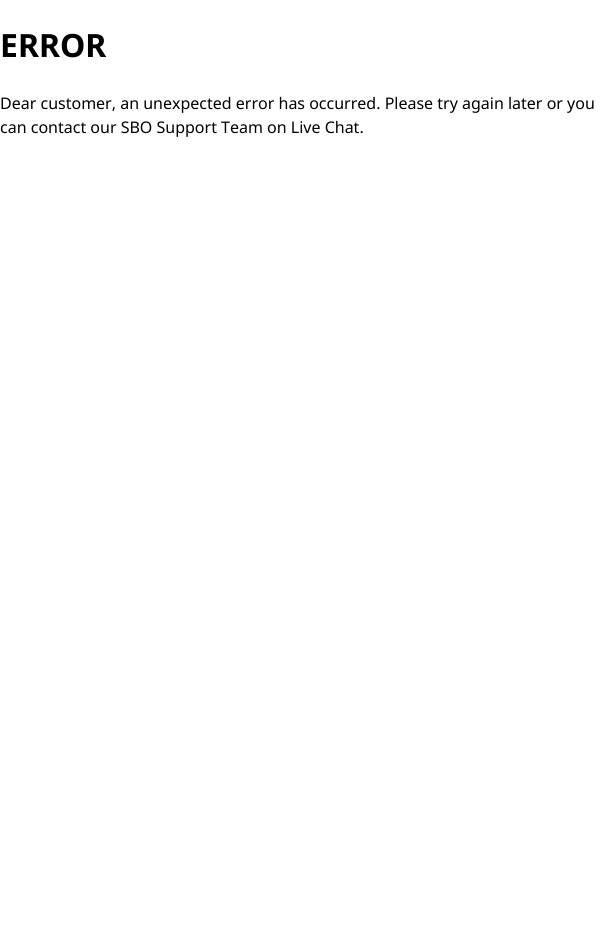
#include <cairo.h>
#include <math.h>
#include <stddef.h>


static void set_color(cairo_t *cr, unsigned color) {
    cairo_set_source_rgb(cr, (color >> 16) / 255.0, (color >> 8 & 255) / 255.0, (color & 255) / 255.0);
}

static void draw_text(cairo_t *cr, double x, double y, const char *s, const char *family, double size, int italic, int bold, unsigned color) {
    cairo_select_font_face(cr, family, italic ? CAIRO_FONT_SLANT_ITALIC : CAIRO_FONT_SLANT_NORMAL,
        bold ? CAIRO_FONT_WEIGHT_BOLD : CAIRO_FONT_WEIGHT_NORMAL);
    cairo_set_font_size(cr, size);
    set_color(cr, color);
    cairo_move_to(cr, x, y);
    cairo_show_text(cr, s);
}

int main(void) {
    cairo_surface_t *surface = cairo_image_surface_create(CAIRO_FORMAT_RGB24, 606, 952);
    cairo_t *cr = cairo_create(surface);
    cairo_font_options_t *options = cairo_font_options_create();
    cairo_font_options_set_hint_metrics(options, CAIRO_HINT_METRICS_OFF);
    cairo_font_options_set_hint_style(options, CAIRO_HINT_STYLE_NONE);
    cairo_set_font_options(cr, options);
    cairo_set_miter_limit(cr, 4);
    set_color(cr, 0xFFFFFF);
    cairo_paint(cr);
    draw_text(cr, 0, 57, "ERROR", "Noto Sans", 32, 0, 1, 0x000000);
    draw_text(cr, 0, 109, "Dear customer, an unexpected error has occurred. Please try again later or you", "Noto Sans", 16, 0, 0, 0x000000);
    draw_text(cr, 0, 133, "can contact our SBO Support Team on Live Chat.", "Noto Sans", 16, 0, 0, 0x000000);
    cairo_surface_write_to_png(surface, "output.png");
    cairo_font_options_destroy(options);
    cairo_destroy(cr);
    cairo_surface_destroy(surface);
    return 0;
}
